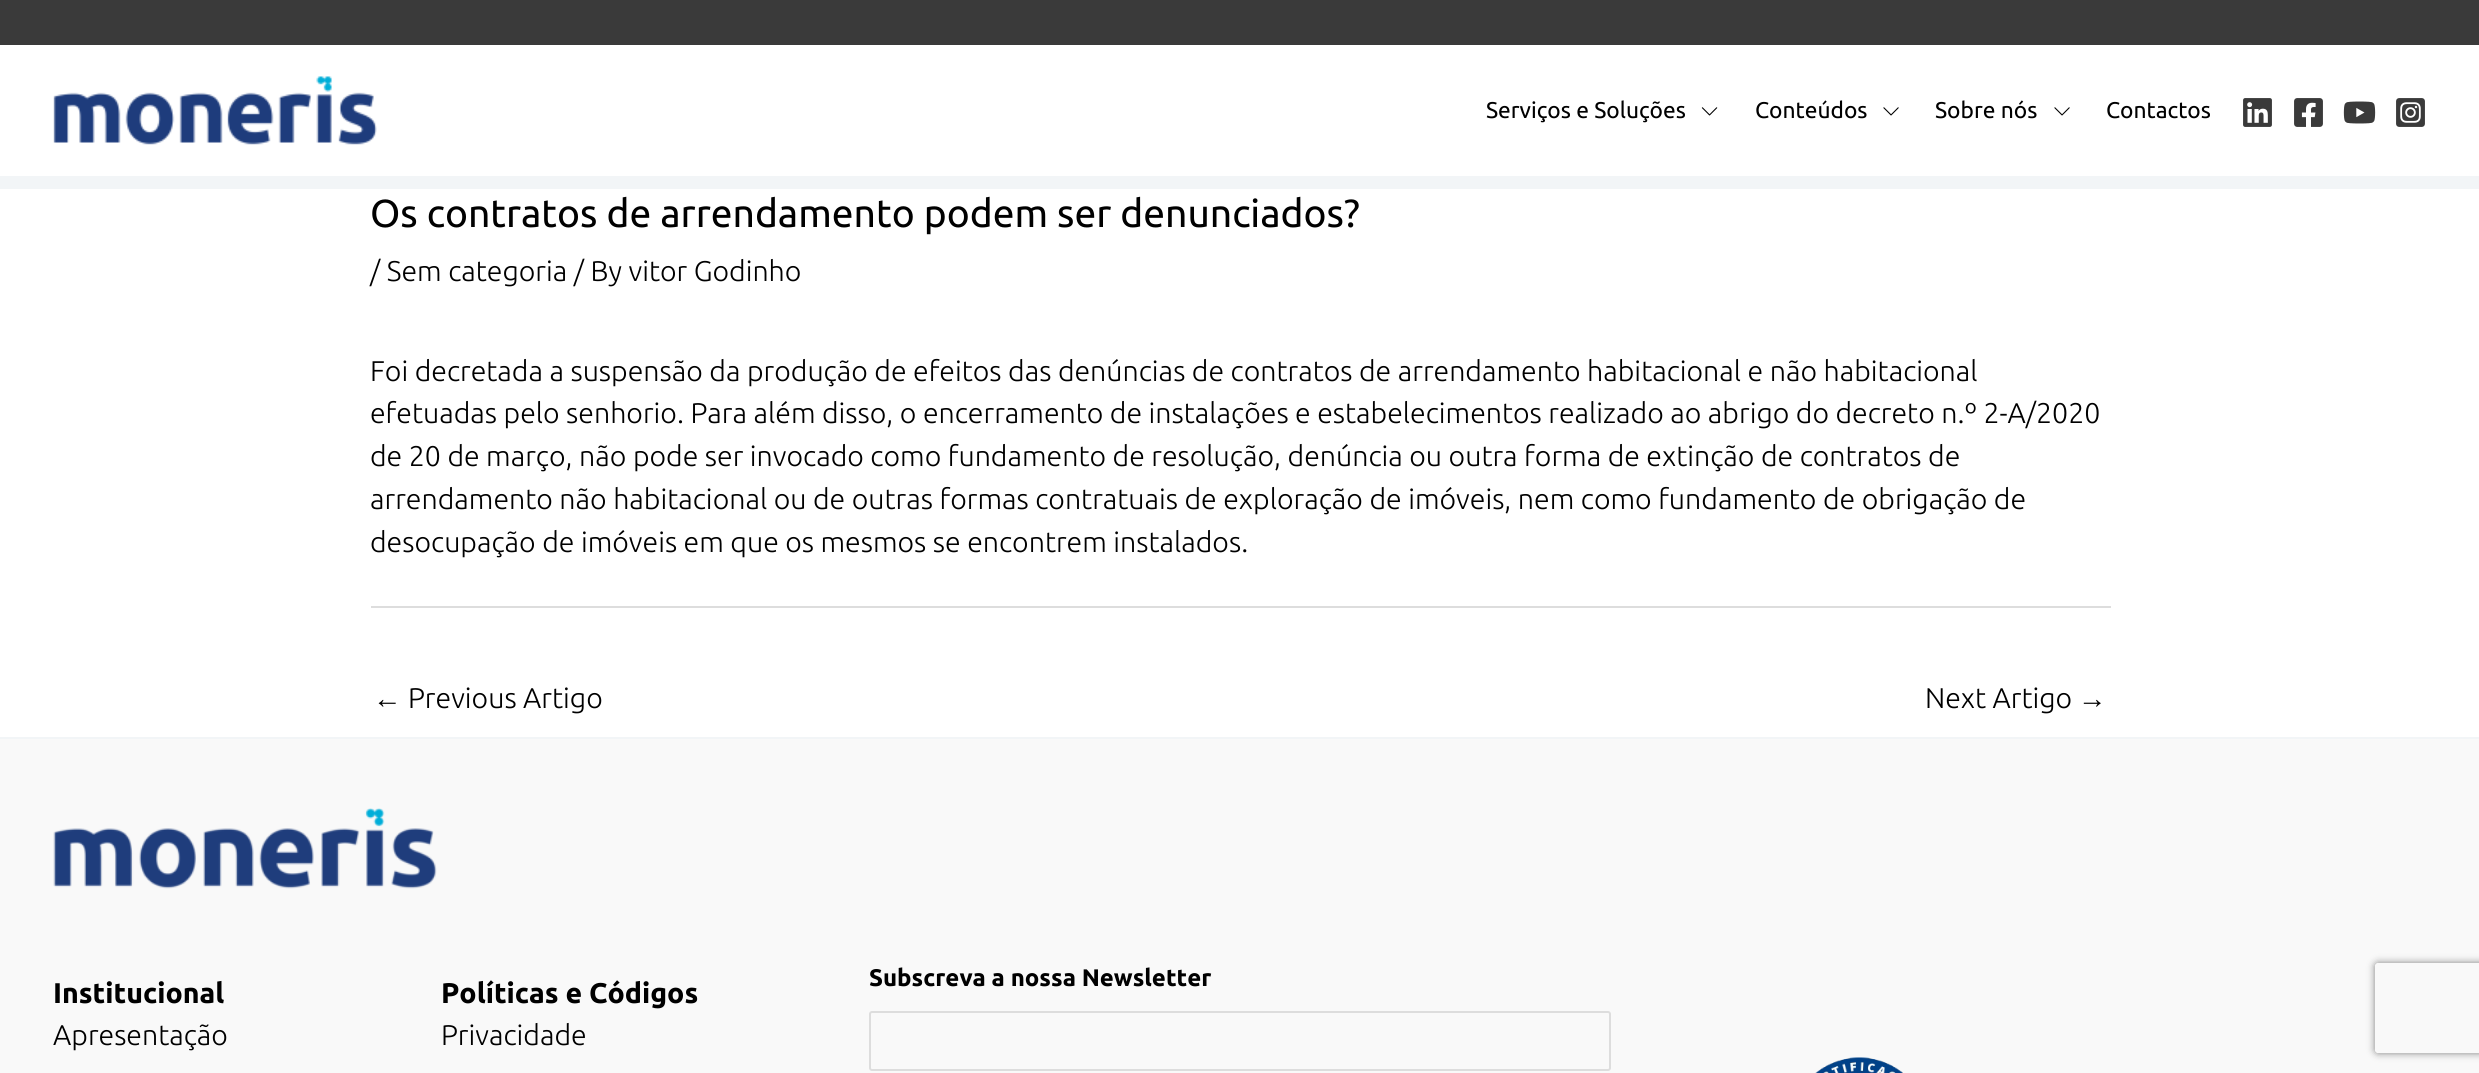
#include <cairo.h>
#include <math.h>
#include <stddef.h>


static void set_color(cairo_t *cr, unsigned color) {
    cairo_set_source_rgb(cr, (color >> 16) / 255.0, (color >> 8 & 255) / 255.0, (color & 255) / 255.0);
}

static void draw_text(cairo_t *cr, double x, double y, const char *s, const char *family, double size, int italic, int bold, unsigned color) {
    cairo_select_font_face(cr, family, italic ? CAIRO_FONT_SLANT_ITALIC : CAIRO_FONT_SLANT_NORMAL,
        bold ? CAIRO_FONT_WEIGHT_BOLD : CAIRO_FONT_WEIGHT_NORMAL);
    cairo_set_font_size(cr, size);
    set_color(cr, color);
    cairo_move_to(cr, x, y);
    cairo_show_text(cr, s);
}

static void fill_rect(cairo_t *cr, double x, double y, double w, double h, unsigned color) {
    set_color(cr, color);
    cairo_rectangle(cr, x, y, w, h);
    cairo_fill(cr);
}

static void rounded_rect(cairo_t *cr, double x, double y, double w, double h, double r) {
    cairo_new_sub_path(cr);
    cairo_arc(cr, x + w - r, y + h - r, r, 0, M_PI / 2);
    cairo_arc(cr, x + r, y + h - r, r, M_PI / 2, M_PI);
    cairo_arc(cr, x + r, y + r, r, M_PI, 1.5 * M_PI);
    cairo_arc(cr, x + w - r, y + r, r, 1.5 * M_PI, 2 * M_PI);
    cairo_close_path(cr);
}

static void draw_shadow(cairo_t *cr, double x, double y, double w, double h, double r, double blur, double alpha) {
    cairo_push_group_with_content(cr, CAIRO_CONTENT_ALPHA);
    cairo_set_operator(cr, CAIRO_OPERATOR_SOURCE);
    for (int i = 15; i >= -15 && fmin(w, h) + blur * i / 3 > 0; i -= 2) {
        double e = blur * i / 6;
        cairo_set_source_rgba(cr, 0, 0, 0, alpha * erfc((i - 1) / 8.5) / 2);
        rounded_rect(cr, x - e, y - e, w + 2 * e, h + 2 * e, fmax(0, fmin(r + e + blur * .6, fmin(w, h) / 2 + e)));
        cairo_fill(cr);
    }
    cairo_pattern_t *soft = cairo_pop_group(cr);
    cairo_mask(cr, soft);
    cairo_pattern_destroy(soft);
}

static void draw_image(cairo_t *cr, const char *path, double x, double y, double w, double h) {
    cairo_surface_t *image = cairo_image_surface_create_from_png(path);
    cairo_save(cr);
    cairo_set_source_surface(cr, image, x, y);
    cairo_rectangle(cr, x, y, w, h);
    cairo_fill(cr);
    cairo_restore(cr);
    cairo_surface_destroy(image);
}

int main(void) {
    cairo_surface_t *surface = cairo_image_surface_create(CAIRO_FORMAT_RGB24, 2479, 1073);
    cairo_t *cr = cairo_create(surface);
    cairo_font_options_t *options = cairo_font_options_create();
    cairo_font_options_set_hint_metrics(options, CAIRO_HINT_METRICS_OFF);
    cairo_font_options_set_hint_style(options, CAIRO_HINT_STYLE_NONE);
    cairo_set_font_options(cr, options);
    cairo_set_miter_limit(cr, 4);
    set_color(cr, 0xFFFFFF);
    cairo_paint(cr);
    fill_rect(cr, 0, 0, 2479, 45, 0x3A3A3A);
    fill_rect(cr, 0, 176, 2479, 13, 0xF2F5F7);
    draw_image(cr, "assets/img1.png", 53, 76, 324, 69);
    draw_text(cr, 1486, 118, "Serviços e Soluções", "Ubuntu", 22.75, 0, 0, 0x000000);
    draw_image(cr, "assets/img2.png", 1701, 107, 17, 9);
    draw_text(cr, 1755, 118, "Conteúdos", "Ubuntu", 22.75, 0, 0, 0x000000);
    draw_image(cr, "assets/img3.png", 1883, 107, 16, 9);
    draw_text(cr, 1935, 118, "Sobre nós", "Ubuntu", 22.75, 0, 0, 0x000000);
    draw_image(cr, "assets/img3.png", 2054, 107, 16, 9);
    draw_text(cr, 2106, 118, "Contactos", "Ubuntu", 22.75, 0, 0, 0x000000);
    draw_image(cr, "assets/img4.png", 2243, 98, 29, 29);
    draw_image(cr, "assets/img5.png", 2294, 98, 29, 29);
    draw_image(cr, "assets/img6.png", 2343, 101, 33, 23);
    draw_image(cr, "assets/img7.png", 2396, 98, 29, 29);
    draw_text(cr, 370, 227, "Os contratos de arrendamento podem ser denunciados?", "Ubuntu", 39, 0, 0, 0x000000);
    draw_text(cr, 370, 281, "/ Sem categoria / By vitor Godinho", "Ubuntu Light", 28.5, 0, 0, 0x000000);
    draw_text(cr, 370, 381, "Foi decretada a suspensão da produção de efeitos das denúncias de contratos de arrendamento habitacional e não habitacional", "Ubuntu Light", 28.5, 0, 0, 0x000000);
    draw_text(cr, 370, 423, "efetuadas pelo senhorio. Para além disso, o encerramento de instalações e estabelecimentos realizado ao abrigo do decreto n.º 2-A/2020", "Ubuntu Light", 28.5, 0, 0, 0x000000);
    draw_text(cr, 370, 466, "de 20 de março, não pode ser invocado como fundamento de resolução, denúncia ou outra forma de extinção de contratos de", "Ubuntu Light", 28.5, 0, 0, 0x000000);
    draw_text(cr, 370, 509, "arrendamento não habitacional ou de outras formas contratuais de exploração de imóveis, nem como fundamento de obrigação de", "Ubuntu Light", 28.5, 0, 0, 0x000000);
    draw_text(cr, 370, 552, "desocupação de imóveis em que os mesmos se encontrem instalados.", "Ubuntu Light", 28.5, 0, 0, 0x000000);
    fill_rect(cr, 371, 606, 1740, 2, 0xDDDDDD);
    draw_text(cr, 373, 708, "←", "Liberation Sans", 28.5, 0, 0, 0x000000);
    draw_text(cr, 408, 708, "Previous Artigo", "Ubuntu Light", 28.5, 0, 0, 0x000000);
    draw_text(cr, 1925, 708, "Next Artigo", "Ubuntu Light", 28.5, 0, 0, 0x000000);
    draw_text(cr, 2078, 708, "→", "Liberation Sans", 28.5, 0, 0, 0x000000);
    fill_rect(cr, 0, 739, 2479, 334, 0xF9F9F9);
    fill_rect(cr, 0, 737, 2479, 2, 0xF2F5F7);
    draw_text(cr, 869, 986, "Subscreva a nossa Newsletter", "Ubuntu", 24, 0, 1, 0x000000);
    rounded_rect(cr, 870, 1012, 740, 58, 2);
    set_color(cr, 0xDDDDDD);
    cairo_stroke(cr);
    draw_image(cr, "assets/img8.png", 53, 808, 384, 81);
    draw_text(cr, 53, 1003, "Institucional", "Ubuntu", 28.5, 0, 1, 0x000000);
    draw_text(cr, 53, 1045, "Apresentação", "Ubuntu Light", 28.5, 0, 0, 0x000000);
    draw_text(cr, 441, 1003, "Políticas e Códigos", "Ubuntu", 28.5, 0, 1, 0x000000);
    draw_text(cr, 441, 1045, "Privacidade", "Ubuntu Light", 28.5, 0, 0, 0x000000);
    draw_image(cr, "assets/img9.png", 1815, 1057, 88, 16);
    cairo_save(cr);
    cairo_set_fill_rule(cr, CAIRO_FILL_RULE_EVEN_ODD);
    cairo_new_path(cr);
    cairo_move_to(cr, 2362, 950);
    cairo_line_to(cr, 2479, 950);
    cairo_line_to(cr, 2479, 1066);
    cairo_line_to(cr, 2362, 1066);
    cairo_close_path(cr);
    cairo_move_to(cr, 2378, 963);
    cairo_line_to(cr, 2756, 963);
    cairo_curve_to(cr, 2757.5, 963, 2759, 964.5, 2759, 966);
    cairo_line_to(cr, 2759, 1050);
    cairo_curve_to(cr, 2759, 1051.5, 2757.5, 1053, 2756, 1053);
    cairo_line_to(cr, 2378, 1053);
    cairo_curve_to(cr, 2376.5, 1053, 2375, 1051.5, 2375, 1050);
    cairo_line_to(cr, 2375, 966);
    cairo_curve_to(cr, 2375, 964.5, 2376.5, 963, 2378, 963);
    cairo_close_path(cr);
    cairo_clip(cr);
    set_color(cr, 0x808080);
    draw_shadow(cr, 2375, 963, 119, 90, 3, 4, 1);
    cairo_restore(cr);
    cairo_surface_write_to_png(surface, "output.png");
    cairo_font_options_destroy(options);
    cairo_destroy(cr);
    cairo_surface_destroy(surface);
    return 0;
}
